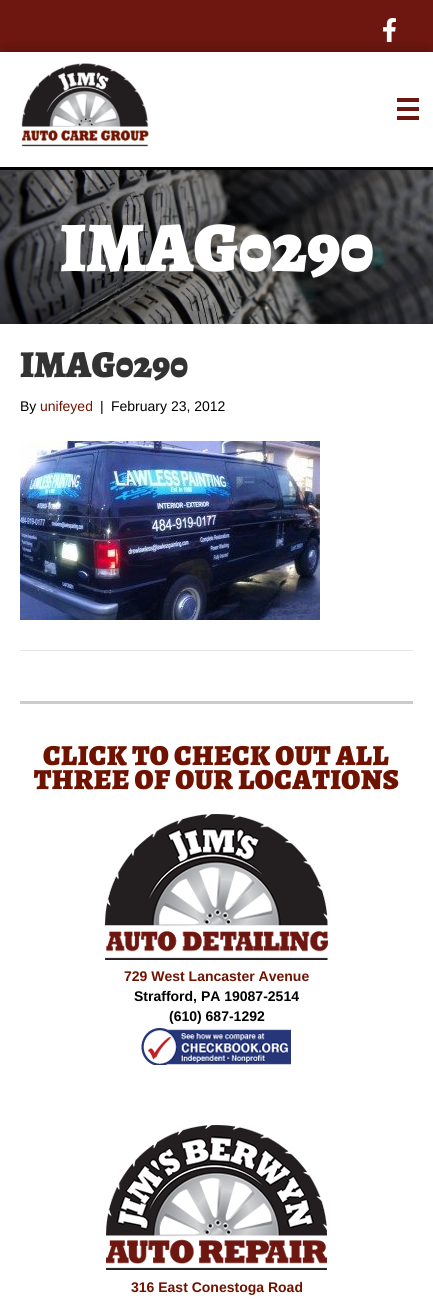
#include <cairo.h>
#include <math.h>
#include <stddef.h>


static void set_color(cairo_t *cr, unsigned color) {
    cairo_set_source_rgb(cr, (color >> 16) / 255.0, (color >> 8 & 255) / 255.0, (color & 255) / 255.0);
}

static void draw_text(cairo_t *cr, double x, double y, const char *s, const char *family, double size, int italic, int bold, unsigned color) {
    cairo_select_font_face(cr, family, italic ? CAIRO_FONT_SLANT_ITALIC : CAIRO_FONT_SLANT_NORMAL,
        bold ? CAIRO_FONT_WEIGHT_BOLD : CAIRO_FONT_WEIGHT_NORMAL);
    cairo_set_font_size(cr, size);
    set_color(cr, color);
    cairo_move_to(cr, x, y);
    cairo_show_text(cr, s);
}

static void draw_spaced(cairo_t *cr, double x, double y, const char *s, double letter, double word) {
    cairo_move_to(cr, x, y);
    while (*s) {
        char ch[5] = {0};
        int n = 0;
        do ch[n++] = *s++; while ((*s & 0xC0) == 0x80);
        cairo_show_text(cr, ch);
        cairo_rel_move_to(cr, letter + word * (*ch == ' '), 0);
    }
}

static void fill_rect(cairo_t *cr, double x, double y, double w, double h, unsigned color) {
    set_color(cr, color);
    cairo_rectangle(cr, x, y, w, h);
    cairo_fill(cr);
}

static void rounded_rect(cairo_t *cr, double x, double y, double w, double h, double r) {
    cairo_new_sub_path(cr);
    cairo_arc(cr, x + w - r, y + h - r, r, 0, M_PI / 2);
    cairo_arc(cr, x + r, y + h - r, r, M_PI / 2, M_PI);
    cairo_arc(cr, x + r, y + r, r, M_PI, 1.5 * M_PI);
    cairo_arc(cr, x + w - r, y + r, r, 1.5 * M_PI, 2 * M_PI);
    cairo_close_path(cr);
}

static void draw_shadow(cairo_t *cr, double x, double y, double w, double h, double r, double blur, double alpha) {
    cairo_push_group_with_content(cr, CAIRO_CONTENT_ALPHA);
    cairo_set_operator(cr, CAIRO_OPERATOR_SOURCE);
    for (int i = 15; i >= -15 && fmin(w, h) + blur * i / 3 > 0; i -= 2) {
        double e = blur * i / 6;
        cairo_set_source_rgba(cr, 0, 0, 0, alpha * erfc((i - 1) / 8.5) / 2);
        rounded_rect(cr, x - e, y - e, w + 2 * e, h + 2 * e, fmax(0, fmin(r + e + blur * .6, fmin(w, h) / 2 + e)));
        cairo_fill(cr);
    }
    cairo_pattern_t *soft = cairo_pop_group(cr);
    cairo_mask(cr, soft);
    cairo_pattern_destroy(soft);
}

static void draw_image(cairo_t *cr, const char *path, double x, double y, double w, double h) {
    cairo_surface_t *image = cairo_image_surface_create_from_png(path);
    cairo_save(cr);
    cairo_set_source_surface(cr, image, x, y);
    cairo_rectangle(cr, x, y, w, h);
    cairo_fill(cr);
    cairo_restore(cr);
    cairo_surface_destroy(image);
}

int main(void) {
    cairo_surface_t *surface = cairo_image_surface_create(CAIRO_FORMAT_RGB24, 433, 1307);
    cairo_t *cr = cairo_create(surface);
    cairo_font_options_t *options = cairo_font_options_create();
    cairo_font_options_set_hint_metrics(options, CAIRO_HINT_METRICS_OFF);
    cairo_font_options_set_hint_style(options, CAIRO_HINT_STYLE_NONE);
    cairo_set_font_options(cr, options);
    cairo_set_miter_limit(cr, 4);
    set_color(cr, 0xFFFFFF);
    cairo_paint(cr);
    fill_rect(cr, 0, 0, 433, 52, 0x6D1710);
    draw_image(cr, "assets/img1.png", 383, 18, 13, 24);
    set_color(cr, 0x000000);
    draw_shadow(cr, 6, 60, 421, 106, 0, 9, 0.8);
    fill_rect(cr, 0, 52, 433, 115, 0xFFFFFF);
    fill_rect(cr, 0, 167, 433, 3, 0x000000);
    draw_image(cr, "assets/img2.png", 21, 63, 128, 84);
    fill_rect(cr, 397, 98, 22, 4, 0x6D1710);
    fill_rect(cr, 397, 107, 22, 4, 0x6D1710);
    fill_rect(cr, 397, 116, 22, 4, 0x6D1710);
    draw_image(cr, "assets/img3.png", 0, 170, 433, 154);
    draw_text(cr, 60, 271, "IMAG0290", "Alegreya SC Black", 71, 0, 0, 0xFFFFFF);
    draw_text(cr, 20, 377, "IMAG0290", "Alegreya SC Black", 38, 0, 0, 0x333333);
    draw_text(cr, 20, 411, "By", "Liberation Sans", 14, 0, 0, 0x000000);
    draw_text(cr, 40, 411, "unifeyed", "Liberation Sans", 14, 0, 0, 0x6F1200);
    draw_text(cr, 100, 411, "|", "Liberation Sans", 14, 0, 0, 0x000000);
    draw_text(cr, 111, 411, "February 23, 2012", "Liberation Sans", 14, 0, 0, 0x000000);
    draw_image(cr, "assets/img4.png", 20, 441, 300, 179);
    fill_rect(cr, 20, 650, 393, 1, 0xE6E6E6);
    fill_rect(cr, 20, 701, 393, 3, 0xCCCCCC);
    cairo_select_font_face(cr, "Alegreya SC Black", CAIRO_FONT_SLANT_NORMAL, CAIRO_FONT_WEIGHT_NORMAL);
    cairo_set_font_size(cr, 29);
    set_color(cr, 0x6F1200);
    draw_spaced(cr, 43, 765, "CLICK TO CHECK OUT ALL", 0.5, 0);
    draw_spaced(cr, 34, 789, "THREE OF OUR LOCATIONS", 0.5, 0);
    draw_image(cr, "assets/img5.png", 105, 814, 223, 146);
    draw_text(cr, 124, 981, "729 West Lancaster Avenue", "Liberation Sans", 14, 0, 1, 0x6F1200);
    draw_text(cr, 134, 1001, "Strafford, PA 19087-2514", "Liberation Sans", 14, 0, 1, 0x000000);
    draw_text(cr, 169, 1021, "(610) 687-1292", "Liberation Sans", 14, 0, 1, 0x000000);
    draw_image(cr, "assets/img6.png", 141, 1028, 150, 37);
    draw_image(cr, "assets/img7.png", 106, 1125, 221, 145);
    draw_text(cr, 131, 1292, "316 East Conestoga Road", "Liberation Sans", 14, 0, 1, 0x6F1200);
    cairo_surface_write_to_png(surface, "output.png");
    cairo_font_options_destroy(options);
    cairo_destroy(cr);
    cairo_surface_destroy(surface);
    return 0;
}
